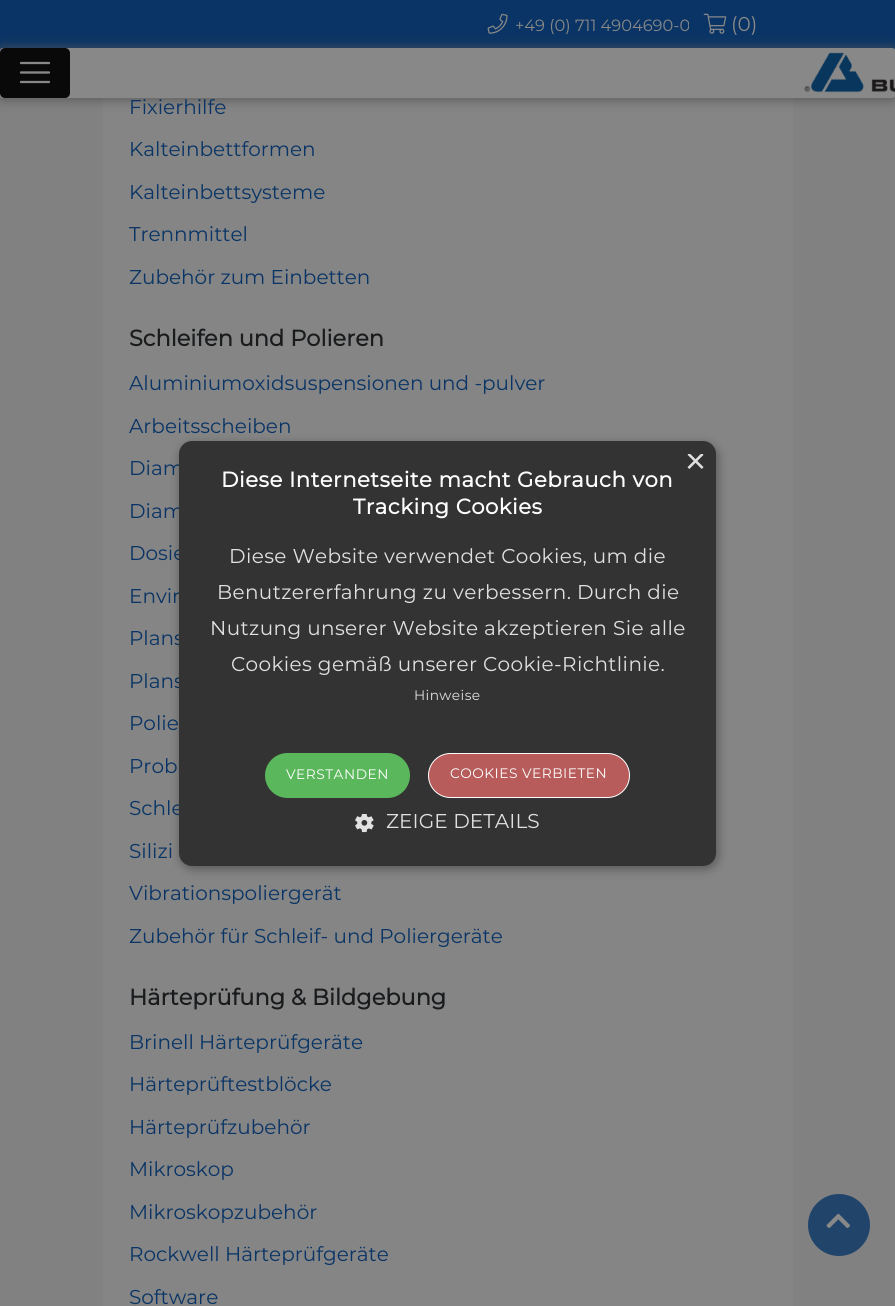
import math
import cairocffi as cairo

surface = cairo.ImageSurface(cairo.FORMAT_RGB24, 895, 1306)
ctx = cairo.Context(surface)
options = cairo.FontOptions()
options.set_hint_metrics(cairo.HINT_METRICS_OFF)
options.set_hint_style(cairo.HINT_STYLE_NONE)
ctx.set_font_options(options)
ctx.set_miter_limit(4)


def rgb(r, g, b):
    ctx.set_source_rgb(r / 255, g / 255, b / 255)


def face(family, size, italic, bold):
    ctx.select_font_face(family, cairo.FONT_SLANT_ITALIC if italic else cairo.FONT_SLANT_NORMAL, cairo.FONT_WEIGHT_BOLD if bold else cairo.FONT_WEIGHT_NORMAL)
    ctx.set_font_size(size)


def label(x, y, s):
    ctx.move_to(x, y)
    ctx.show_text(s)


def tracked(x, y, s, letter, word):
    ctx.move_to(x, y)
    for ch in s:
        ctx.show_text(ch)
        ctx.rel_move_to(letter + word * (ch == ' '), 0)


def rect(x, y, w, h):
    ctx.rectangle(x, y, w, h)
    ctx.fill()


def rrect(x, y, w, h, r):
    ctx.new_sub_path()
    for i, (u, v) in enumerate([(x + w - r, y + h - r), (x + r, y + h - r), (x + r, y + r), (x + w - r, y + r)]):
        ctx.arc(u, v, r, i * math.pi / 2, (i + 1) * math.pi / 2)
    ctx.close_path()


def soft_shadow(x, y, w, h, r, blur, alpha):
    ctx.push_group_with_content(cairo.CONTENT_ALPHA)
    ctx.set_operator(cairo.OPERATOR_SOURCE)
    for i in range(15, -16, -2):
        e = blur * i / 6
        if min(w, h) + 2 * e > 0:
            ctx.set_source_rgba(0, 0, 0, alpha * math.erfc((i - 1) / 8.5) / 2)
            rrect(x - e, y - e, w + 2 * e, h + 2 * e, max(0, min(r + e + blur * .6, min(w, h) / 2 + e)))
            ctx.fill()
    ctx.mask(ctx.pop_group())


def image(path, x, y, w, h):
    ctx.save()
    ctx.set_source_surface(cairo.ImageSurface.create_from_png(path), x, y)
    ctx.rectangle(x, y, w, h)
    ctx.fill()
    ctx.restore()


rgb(129, 129, 129)
ctx.paint()
rgb(9, 52, 101)
rect(0, 0, 895, 50)
image('image0.png', 487, 13, 21, 21)
face('Montserrat Thin', 16.25, 0, 0)
rgb(136, 136, 136)
label(515, 31, '+49 (0) 711 4904690-0')
image('image1.png', 703, 13, 24, 21)
face('Montserrat Thin', 20, 0, 0)
label(731, 31, '(0)')
rgb(133, 133, 133)
rect(103, 98, 690, 1208)
rgb(85, 85, 85)
soft_shadow(0, 49, 895, 50, 2.5, 6, 1)
rgb(136, 136, 136)
rrect(0, 48, 895, 50, 2.5)
ctx.fill()
rgb(9, 9, 9)
rrect(0, 48, 70, 50, 5)
ctx.fill()
ctx.new_path()
ctx.move_to(21, 63)
ctx.line_to(49, 63)
ctx.move_to(21, 72.5)
ctx.line_to(49, 72.5)
ctx.move_to(21, 82)
ctx.line_to(49, 82)
rgb(136, 136, 136)
ctx.set_line_width(2.3)
ctx.set_line_cap(cairo.LINE_CAP_ROUND)
ctx.stroke()
image('image2.png', 804, 52, 91, 41)
rgb(9, 52, 101)
label(129, 114, 'Fixierhilfe')
label(129, 156, 'Kalteinbettformen')
label(129, 199, 'Kalteinbettsysteme')
label(129, 241, 'Trennmittel')
label(129, 284, 'Zubehör zum Einbetten')
face('Montserrat', 22.5, 0, 1)
rgb(25, 27, 29)
label(129, 346, 'Schleifen und Polieren')
face('Montserrat Thin', 20, 0, 0)
rgb(9, 52, 101)
label(129, 390, 'Aluminiumoxidsuspensionen und -pulver')
label(129, 433, 'Arbeitsscheiben')
label(129, 475, 'Diam')
label(129, 518, 'Diam')
label(129, 560, 'Dosie')
label(129, 603, 'Envir')
label(129, 645, 'Plans')
label(129, 688, 'Plans')
label(129, 730, 'Polie')
label(129, 773, 'Prob')
label(129, 815, 'Schle')
label(129, 858, 'Silizi')
label(129, 900, 'Vibrationspoliergerät')
label(129, 943, 'Zubehör für Schleif- und Poliergeräte')
face('Montserrat', 22.5, 0, 1)
rgb(25, 27, 29)
label(129, 1005, 'Härteprüfung & Bildgebung')
face('Montserrat Thin', 20, 0, 0)
rgb(9, 52, 101)
label(129, 1049, 'Brinell Härteprüfgeräte')
label(129, 1091, 'Härteprüftestblöcke')
label(129, 1134, 'Härteprüfzubehör')
label(129, 1176, 'Mikroskop')
label(129, 1219, 'Mikroskopzubehör')
label(129, 1261, 'Rockwell Härteprüfgeräte')
label(129, 1304, 'Software')
rgb(0, 0, 0)
soft_shadow(180, 444, 538, 425, 13, 5, 0.35)
rgb(51, 51, 51)
rrect(179, 441, 537, 425, 13)
ctx.fill()
ctx.save()
ctx.rectangle(685, 454, 19, 19)
ctx.clip()
face('Liberation Sans', 36, 0, 0)
rgb(224, 224, 224)
label(685, 473, '×')
ctx.restore()
face('Montserrat', 21.25, 0, 1)
rgb(255, 255, 255)
tracked(221, 487, 'Diese Internetseite macht Gebrauch von', 0.5, 0)
tracked(353, 514, 'Tracking Cookies', 0.5, 0)
face('Montserrat Thin', 20, 0, 0)
rgb(224, 224, 224)
tracked(229, 563, 'Diese Website verwendet Cookies, um die', 0.4, 0)
tracked(217, 599, 'Benutzererfahrung zu verbessern. Durch die', 0.4, 0)
tracked(210, 635, 'Nutzung unserer Website akzeptieren Sie alle', 0.4, 0)
tracked(231, 671, 'Cookies gemäß unserer Cookie-Richtlinie.', 0.4, 0)
face('Montserrat Thin', 13.75, 0, 0)
tracked(414, 700, 'Hinweise', 0.4, 0)
rgb(91, 183, 91)
rrect(265, 753, 145, 45, 22.5)
ctx.fill()
rgb(255, 255, 255)
tracked(286, 779, 'VERSTANDEN', 0.5, 0)
rgb(183, 91, 91)
rrect(428.5, 753.5, 201, 44, 22)
ctx.fill_preserve()
rgb(255, 255, 255)
ctx.set_line_width(1)
ctx.set_line_cap(cairo.LINE_CAP_BUTT)
ctx.stroke()
tracked(450, 778, 'COOKIES VERBIETEN', 0.5, 0)
image('image3.png', 355, 814, 19, 19)
face('Montserrat Thin', 20, 0, 0)
rgb(224, 224, 224)
tracked(386, 828, 'ZEIGE DETAILS', 0.1, 0)
rgb(33, 68, 106)
ctx.new_path()
ctx.arc(839, 1225, 31, 0, 2 * math.pi)
ctx.fill()
image('image4.png', 826, 1213, 24, 15)
surface.write_to_png('render.png')
